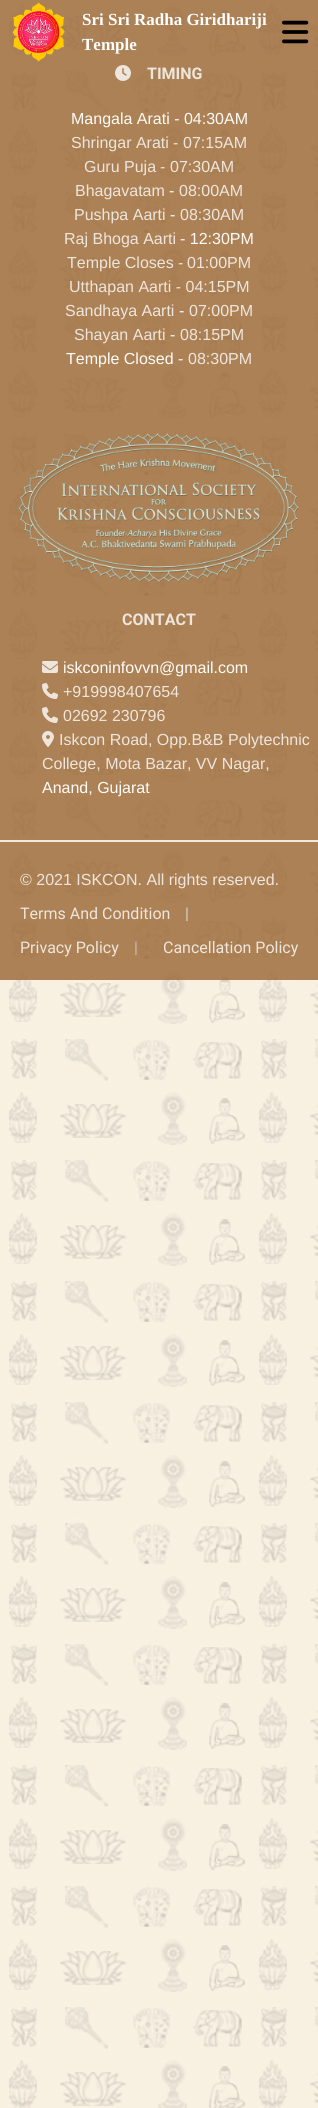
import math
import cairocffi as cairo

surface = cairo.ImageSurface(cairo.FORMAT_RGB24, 318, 2108)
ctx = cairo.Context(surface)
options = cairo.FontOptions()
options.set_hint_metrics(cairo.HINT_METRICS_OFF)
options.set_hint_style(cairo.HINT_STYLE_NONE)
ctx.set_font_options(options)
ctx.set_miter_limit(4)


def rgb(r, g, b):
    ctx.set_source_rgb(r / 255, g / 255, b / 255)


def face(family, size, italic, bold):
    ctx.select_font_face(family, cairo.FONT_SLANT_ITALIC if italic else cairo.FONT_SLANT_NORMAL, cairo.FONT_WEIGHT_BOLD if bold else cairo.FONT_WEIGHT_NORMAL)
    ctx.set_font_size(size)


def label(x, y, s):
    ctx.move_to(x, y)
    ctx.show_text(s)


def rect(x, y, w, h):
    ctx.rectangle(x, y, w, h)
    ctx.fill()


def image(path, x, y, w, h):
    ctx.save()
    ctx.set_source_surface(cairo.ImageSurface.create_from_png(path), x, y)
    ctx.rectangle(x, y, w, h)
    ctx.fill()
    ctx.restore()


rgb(255, 255, 255)
ctx.paint()
image('image0.png', 0, 0, 318, 2108)
image('image1.png', 0, 0, 318, 56)
ctx.set_source_rgba(0.6, 0.4, 0.2, 0.8)
rect(0, 56, 318, 924)
image('image2.png', 12, 2, 53, 60)
face('Liberation Serif', 17, 0, 1)
rgb(255, 255, 255)
label(82, 25, 'Sri Sri Radha Giridhariji')
label(82, 50, 'Temple')
image('image3.png', 282, 20, 27, 24)
image('image4.png', 115, 65, 16, 16)
face('Roboto', 16, 0, 1)
rgb(238, 230, 221)
label(147, 79, 'TIMING')
face('Liberation Sans', 16, 0, 0)
rgb(254, 252, 249)
label(71, 124, 'Mangala Arati - 04:30AM')
rgb(238, 230, 221)
label(71, 148, 'Shringar Arati')
label(173, 148, '-')
label(183, 148, '07:15AM')
label(84, 172, 'Guru Puja')
label(160, 172, '-')
label(170, 172, '07:30AM')
label(75, 196, 'Bhagavatam')
rgb(254, 252, 249)
label(169, 196, '-')
rgb(238, 230, 221)
label(179, 196, '08:00AM')
label(74, 220, 'Pushpa Aarti')
rgb(254, 252, 249)
label(170, 220, '-')
rgb(238, 230, 221)
label(180, 220, '08:30AM')
label(64, 244, 'Raj Bhoga Aarti')
rgb(254, 252, 249)
label(180, 244, '- 12:30PM')
rgb(238, 230, 221)
label(67, 268, 'Temple Closes')
label(178, 268, '-')
label(187, 268, '01:00PM')
label(69, 292, 'Utthapan Aarti - 04:15PM')
label(65, 316, 'Sandhaya Aarti')
rgb(254, 252, 249)
label(179, 316, '-')
rgb(238, 230, 221)
label(189, 316, '07:00PM')
label(74, 340, 'Shayan Aarti')
rgb(254, 252, 249)
label(170, 340, '-')
rgb(238, 230, 221)
label(180, 340, '08:15PM')
rgb(254, 252, 249)
label(66, 364, 'Temple Closed -')
rgb(238, 230, 221)
label(188, 364, '08:30PM')
image('image5.png', 17, 432, 282, 155)
face('Roboto', 16, 0, 1)
label(122, 625, 'CONTACT')
image('image6.png', 42, 661, 16, 12)
face('Liberation Sans', 16, 0, 0)
rgb(254, 252, 249)
label(63, 673, 'iskconinfovvn@gmail.com')
image('image7.png', 42, 683, 16, 16)
rgb(238, 230, 221)
label(63, 697, '+919998407654')
image('image7.png', 42, 707, 16, 16)
label(63, 721, '02692 230796')
image('image8.png', 42, 731, 12, 16)
label(59, 745, 'Iskcon Road, Opp.B&B Polytechnic')
label(42, 769, 'College, Mota Bazar, VV Nagar,')
rgb(254, 252, 249)
label(42, 793, 'Anand, Gujarat')
rgb(239, 234, 221)
rect(0, 840, 318, 2)
rgb(238, 230, 221)
label(20, 885, '© 2021 ISKCON. All rights reserved.')
face('Roboto', 16, 0, 0)
label(20, 919, 'Terms And Condition')
rgb(213, 211, 208)
label(185, 919, '|')
rgb(238, 230, 221)
label(20, 953, 'Privacy Policy')
rgb(198, 189, 180)
label(134, 953, '|')
rgb(238, 230, 221)
label(163, 953, 'Cancellation Policy')
surface.write_to_png('render.png')
